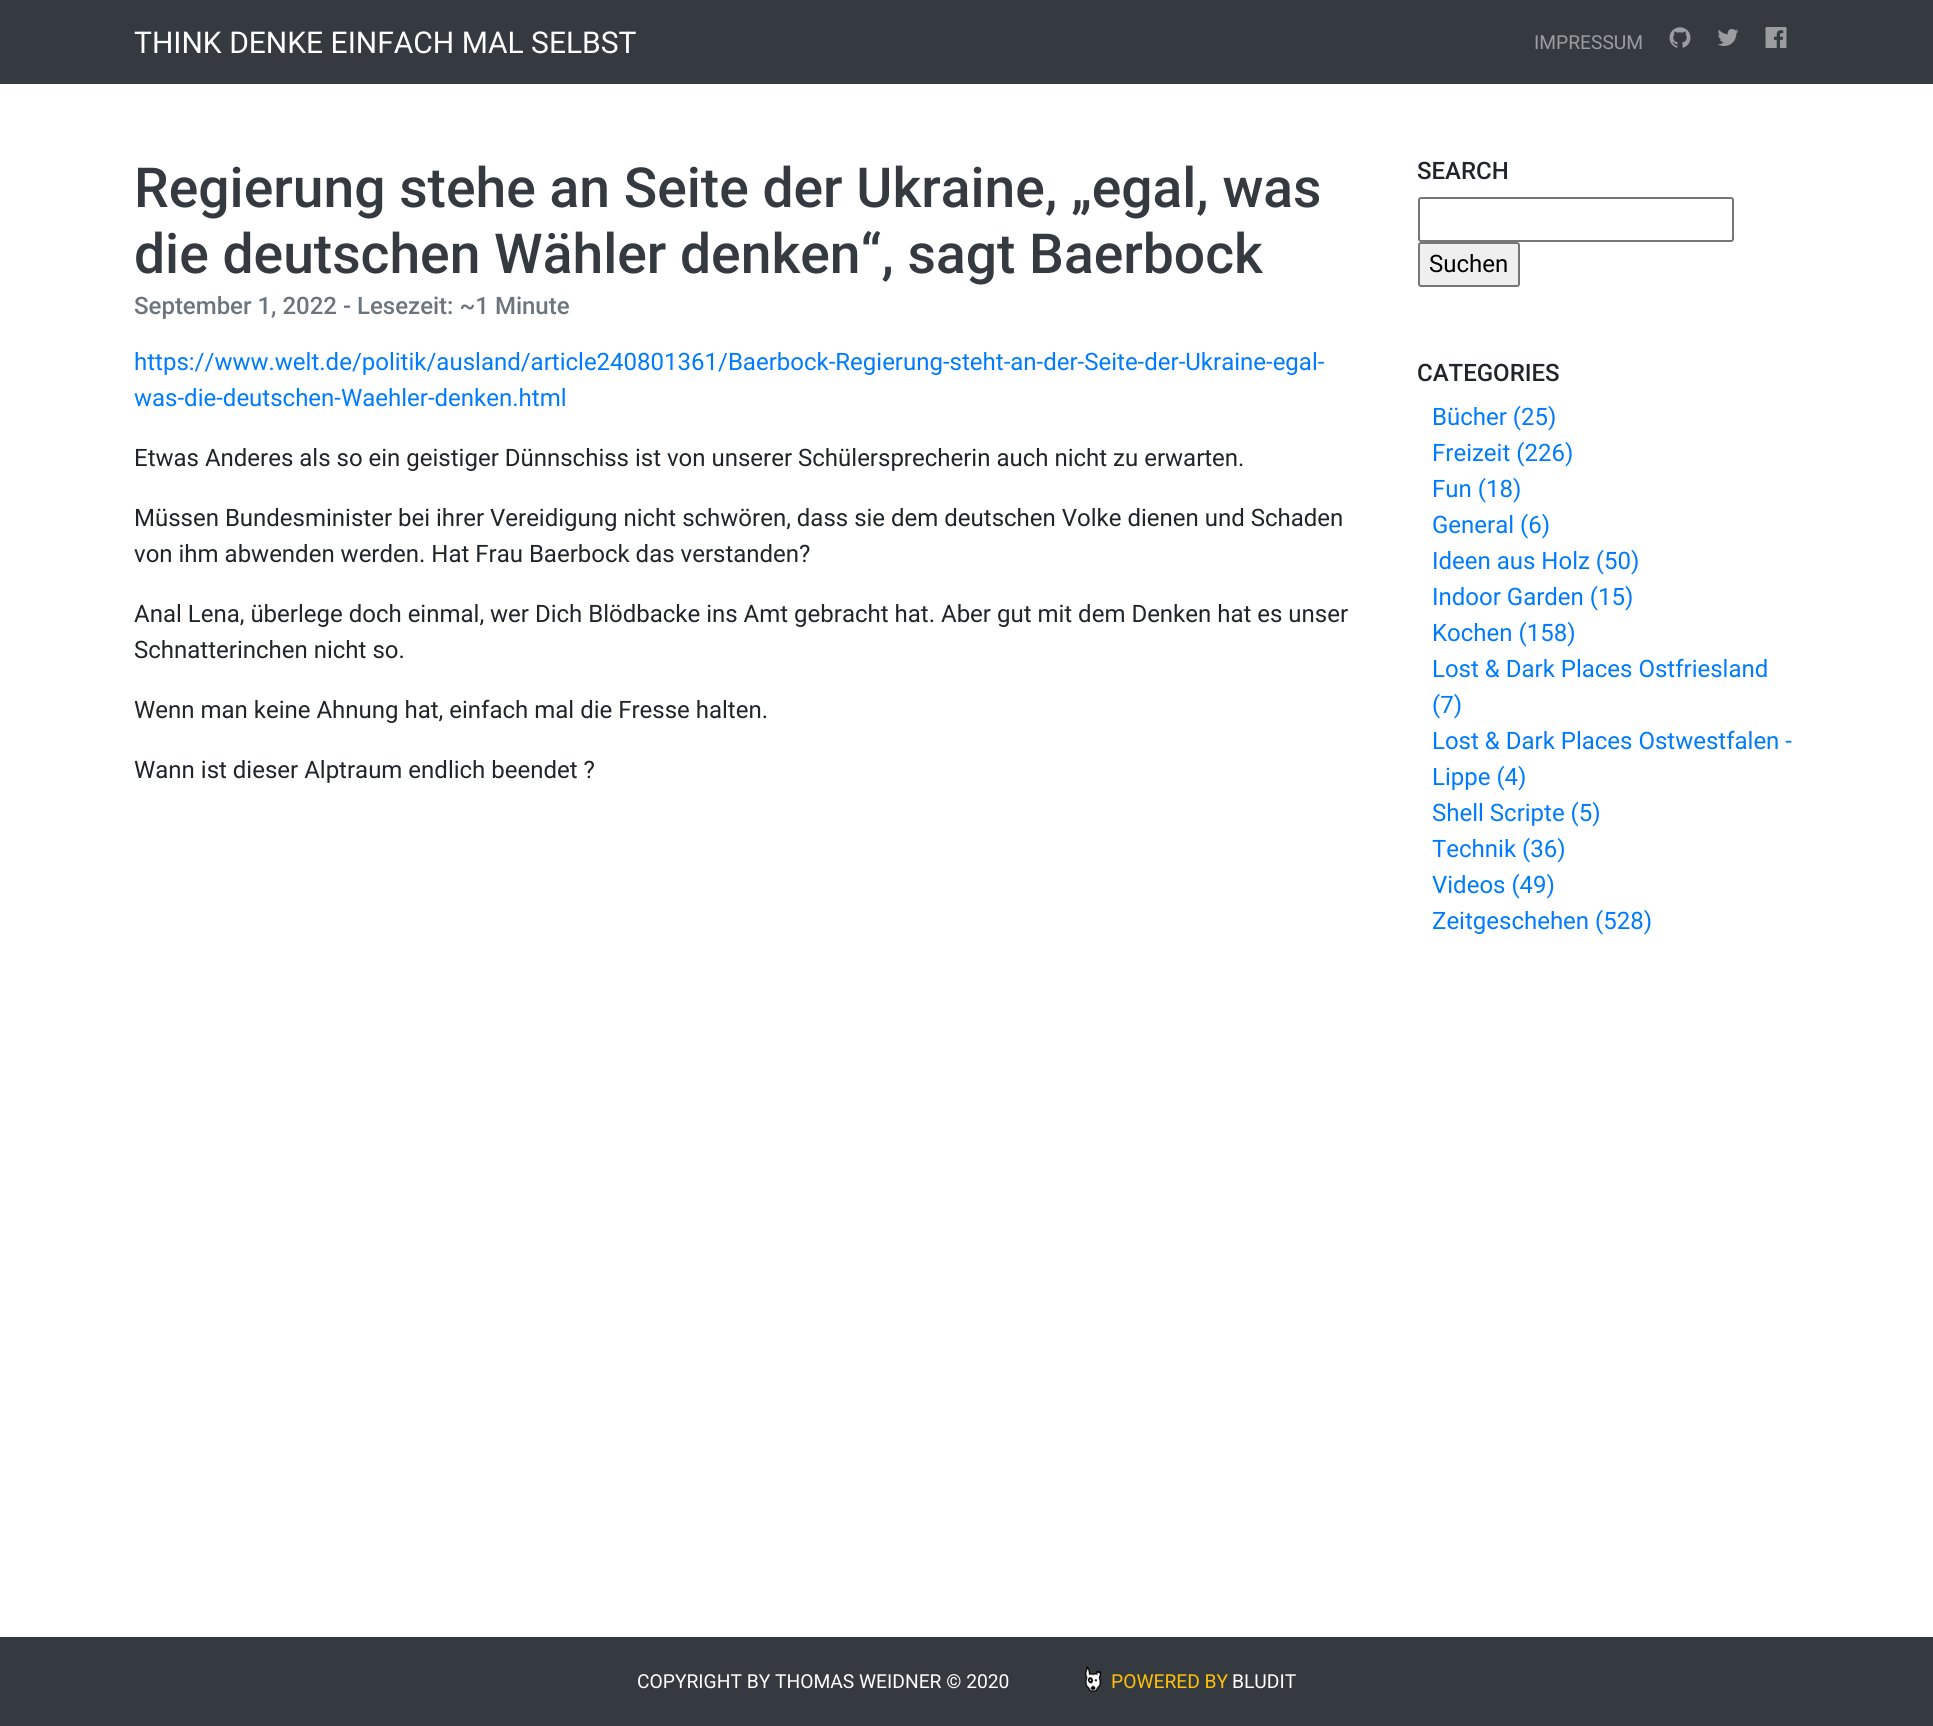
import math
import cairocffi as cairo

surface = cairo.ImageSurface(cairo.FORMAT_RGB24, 1933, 1726)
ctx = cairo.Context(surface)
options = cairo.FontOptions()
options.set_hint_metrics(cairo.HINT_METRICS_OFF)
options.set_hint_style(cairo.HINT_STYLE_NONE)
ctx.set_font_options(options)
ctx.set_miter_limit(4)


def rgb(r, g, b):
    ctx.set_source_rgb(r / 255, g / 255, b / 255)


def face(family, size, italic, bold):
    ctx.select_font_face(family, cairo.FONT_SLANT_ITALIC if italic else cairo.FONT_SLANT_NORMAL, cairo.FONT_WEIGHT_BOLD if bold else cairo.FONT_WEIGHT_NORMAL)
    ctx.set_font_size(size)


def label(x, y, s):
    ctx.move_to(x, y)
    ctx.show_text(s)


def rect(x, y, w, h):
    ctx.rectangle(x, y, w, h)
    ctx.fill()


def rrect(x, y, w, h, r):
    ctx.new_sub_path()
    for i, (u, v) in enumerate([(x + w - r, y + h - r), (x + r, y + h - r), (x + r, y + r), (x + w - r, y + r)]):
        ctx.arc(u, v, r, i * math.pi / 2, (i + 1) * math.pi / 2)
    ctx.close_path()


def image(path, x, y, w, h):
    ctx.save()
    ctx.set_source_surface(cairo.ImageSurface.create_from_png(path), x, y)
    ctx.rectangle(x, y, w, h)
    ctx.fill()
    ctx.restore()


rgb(255, 255, 255)
ctx.paint()
rgb(52, 58, 64)
rect(0, 0, 1933, 84)
face('Roboto', 30, 0, 0)
rgb(255, 255, 255)
label(134, 53, 'THINK DENKE EINFACH MAL SELBST')
face('Roboto', 19.25, 0, 0)
rgb(154, 157, 160)
label(1534, 49, 'IMPRESSUM')
image('image0.png', 1669, 27, 22, 21)
image('image1.png', 1717, 29, 22, 17)
image('image2.png', 1765, 27, 22, 21)
face('Roboto Medium', 55.2, 0, 0)
rgb(52, 58, 64)
label(134, 207, 'Regierung stehe an Seite der Ukraine, „egal, was')
label(134, 273, 'die deutschen Wähler denken“, sagt Baerbock')
face('Roboto Medium', 24, 0, 0)
rgb(108, 117, 125)
label(134, 314, 'September 1, 2022 - Lesezeit: ~1 Minute')
face('Roboto', 24, 0, 0)
rgb(0, 123, 255)
label(134, 370, 'https://www.welt.de/politik/ausland/article240801361/Baerbock-Regierung-steht-an-der-Seite-der-Ukraine-egal-')
label(134, 406, 'was-die-deutschen-Waehler-denken.html')
rgb(33, 37, 41)
label(134, 466, 'Etwas Anderes als so ein geistiger Dünnschiss ist von unserer Schülersprecherin auch nicht zu erwarten.')
label(134, 526, 'Müssen Bundesminister bei ihrer Vereidigung nicht schwören, dass sie dem deutschen Volke dienen und Schaden')
label(134, 562, 'von ihm abwenden werden. Hat Frau Baerbock das verstanden?')
label(134, 622, 'Anal Lena, überlege doch einmal, wer Dich Blödbacke ins Amt gebracht hat. Aber gut mit dem Denken hat es unser')
label(134, 658, 'Schnatterinchen nicht so.')
label(134, 718, 'Wenn man keine Ahnung hat, einfach mal die Fresse halten.')
label(134, 778, 'Wann ist dieser Alptraum endlich beendet ?')
face('Roboto Medium', 24, 0, 0)
label(1417, 179, 'SEARCH')
rrect(1419, 198, 314, 43, 2)
rgb(118, 118, 118)
ctx.stroke()
rgb(239, 239, 239)
rrect(1419, 243, 100, 43, 2)
ctx.fill_preserve()
rgb(118, 118, 118)
ctx.stroke()
face('Roboto', 24, 0, 0)
rgb(0, 0, 0)
label(1429, 272, 'Suchen')
face('Roboto Medium', 24, 0, 0)
rgb(33, 37, 41)
label(1417, 381, 'CATEGORIES')
face('Roboto', 24, 0, 0)
rgb(0, 123, 255)
label(1432, 425, 'Bücher (25)')
label(1432, 461, 'Freizeit (226)')
label(1432, 497, 'Fun (18)')
label(1432, 533, 'General (6)')
label(1432, 569, 'Ideen aus Holz (50)')
label(1432, 605, 'Indoor Garden (15)')
label(1432, 641, 'Kochen (158)')
label(1432, 677, 'Lost & Dark Places Ostfriesland')
label(1432, 713, '(7)')
label(1432, 749, 'Lost & Dark Places Ostwestfalen -')
label(1432, 785, 'Lippe (4)')
label(1432, 821, 'Shell Scripte (5)')
label(1432, 857, 'Technik (36)')
label(1432, 893, 'Videos (49)')
label(1432, 929, 'Zeitgeschehen (528)')
rgb(52, 58, 64)
rect(0, 1637, 1933, 89)
face('Roboto', 19.25, 0, 0)
rgb(255, 255, 255)
label(637, 1688, 'COPYRIGHT BY THOMAS WEIDNER © 2020')
image('image3.png', 1084, 1666, 18, 26)
rgb(255, 193, 7)
label(1111, 1688, 'POWERED BY')
rgb(255, 255, 255)
label(1232, 1688, 'BLUDIT')
surface.write_to_png('render.png')
